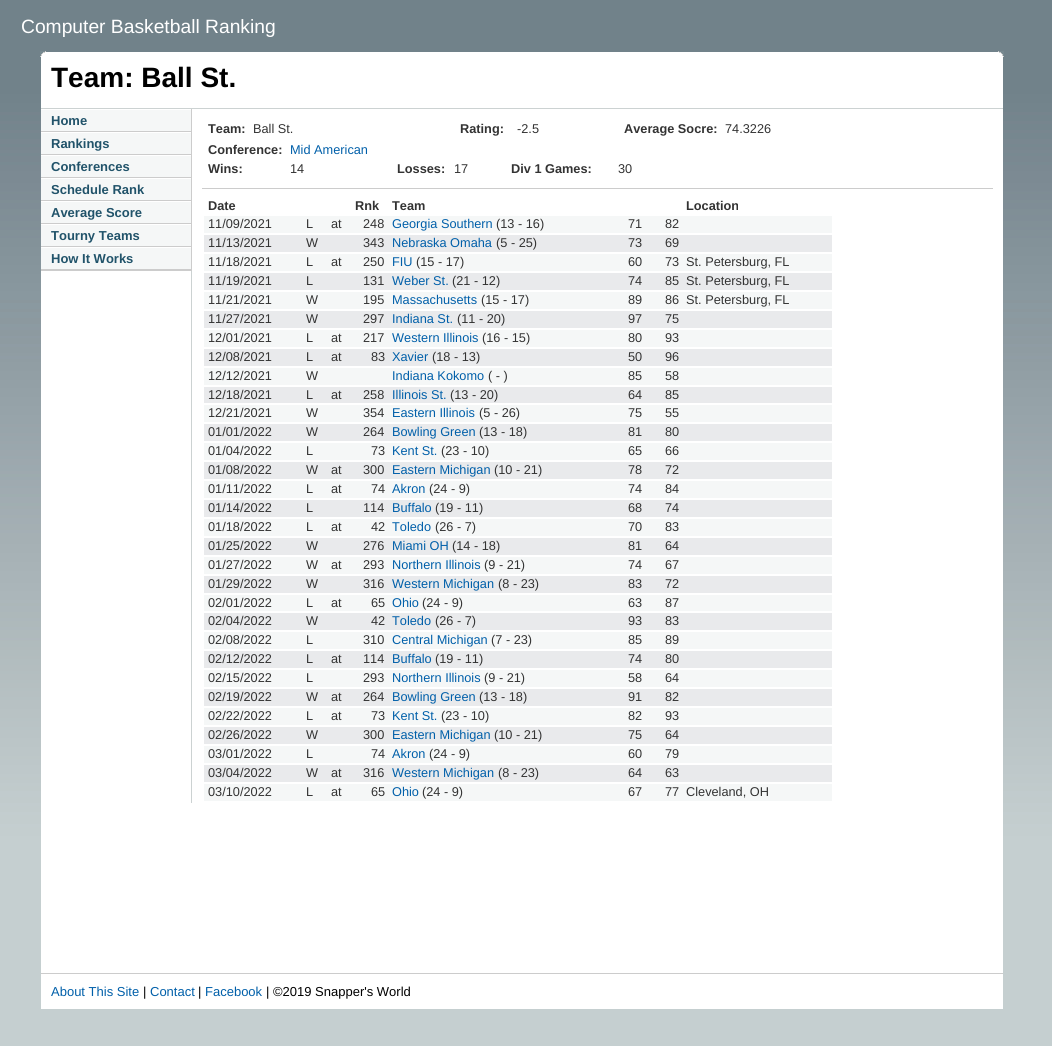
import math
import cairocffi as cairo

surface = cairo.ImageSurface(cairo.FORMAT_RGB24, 1052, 1046)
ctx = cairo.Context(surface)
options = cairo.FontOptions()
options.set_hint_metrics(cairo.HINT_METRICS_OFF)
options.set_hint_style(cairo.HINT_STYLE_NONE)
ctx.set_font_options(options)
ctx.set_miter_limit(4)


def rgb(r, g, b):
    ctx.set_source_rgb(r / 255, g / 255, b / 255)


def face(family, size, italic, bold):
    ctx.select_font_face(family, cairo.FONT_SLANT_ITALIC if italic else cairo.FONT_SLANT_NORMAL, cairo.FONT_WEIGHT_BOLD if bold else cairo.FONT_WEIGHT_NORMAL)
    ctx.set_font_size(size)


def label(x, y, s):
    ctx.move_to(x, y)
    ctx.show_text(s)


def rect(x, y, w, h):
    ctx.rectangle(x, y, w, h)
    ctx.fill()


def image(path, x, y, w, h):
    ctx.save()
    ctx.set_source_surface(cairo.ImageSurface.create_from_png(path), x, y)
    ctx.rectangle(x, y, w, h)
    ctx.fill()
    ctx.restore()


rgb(255, 255, 255)
ctx.paint()
image('image0.png', 0, 0, 1052, 1046)
face('Liberation Sans', 19.25, 0, 0)
rgb(255, 255, 255)
label(21, 33, 'Computer Basketball Ranking')
rect(41, 52, 962, 957)
image('image1.png', 40, 51, 6, 6)
image('image2.png', 998, 51, 6, 6)
rgb(204, 210, 210)
rect(41, 108, 962, 1)
face('Liberation Sans', 28, 0, 1)
rgb(0, 0, 0)
label(51, 87, 'Team: Ball St.')
rgb(245, 247, 247)
rect(41, 110, 150, 159)
rgb(204, 204, 204)
rect(191, 109, 1, 162)
rect(41, 270, 151, 1)
rect(41, 131, 150, 1)
face('Liberation Sans', 13, 0, 1)
rgb(33, 83, 106)
label(51, 125, 'Home')
rgb(255, 255, 255)
rect(41, 132, 150, 1)
rgb(204, 204, 204)
rect(41, 154, 150, 1)
rgb(33, 83, 106)
label(51, 148, 'Rankings')
rgb(255, 255, 255)
rect(41, 155, 150, 1)
rgb(204, 204, 204)
rect(41, 177, 150, 1)
rgb(33, 83, 106)
label(51, 171, 'Conferences')
rgb(255, 255, 255)
rect(41, 178, 150, 1)
rgb(204, 204, 204)
rect(41, 200, 150, 1)
rgb(33, 83, 106)
label(51, 194, 'Schedule Rank')
rgb(255, 255, 255)
rect(41, 201, 150, 1)
rgb(204, 204, 204)
rect(41, 223, 150, 1)
rgb(33, 83, 106)
label(51, 217, 'Average Score')
rgb(255, 255, 255)
rect(41, 224, 150, 1)
rgb(204, 204, 204)
rect(41, 246, 150, 1)
rgb(33, 83, 106)
label(51, 240, 'Tourny Teams')
rgb(255, 255, 255)
rect(41, 247, 150, 1)
rgb(204, 204, 204)
rect(41, 269, 150, 1)
rgb(33, 83, 106)
label(51, 263, 'How It Works')
rgb(204, 210, 210)
rect(191, 271, 1, 532)
face('Liberation Sans', 12.75, 0, 1)
rgb(51, 51, 51)
label(208, 133, 'Team:')
face('Liberation Sans', 12.75, 0, 0)
label(253, 133, 'Ball St.')
face('Liberation Sans', 12.75, 0, 1)
label(460, 133, 'Rating:')
face('Liberation Sans', 12.75, 0, 0)
label(517, 133, '-2.5')
face('Liberation Sans', 12.75, 0, 1)
label(624, 133, 'Average Socre:')
face('Liberation Sans', 12.75, 0, 0)
label(725, 133, '74.3226')
face('Liberation Sans', 12.75, 0, 1)
label(208, 154, 'Conference:')
face('Liberation Sans', 12.75, 0, 0)
rgb(0, 95, 169)
label(290, 154, 'Mid American')
face('Liberation Sans', 12.75, 0, 1)
rgb(51, 51, 51)
label(208, 173, 'Wins:')
face('Liberation Sans', 12.75, 0, 0)
label(290, 173, '14')
face('Liberation Sans', 12.75, 0, 1)
label(397, 173, 'Losses:')
face('Liberation Sans', 12.75, 0, 0)
label(454, 173, '17')
face('Liberation Sans', 12.75, 0, 1)
label(511, 173, 'Div 1 Games:')
face('Liberation Sans', 12.75, 0, 0)
label(618, 173, '30')
rgb(204, 204, 204)
rect(202, 188, 791, 1)
face('Liberation Sans', 12.75, 0, 1)
rgb(51, 51, 51)
label(208, 210, 'Date')
label(355, 210, 'Rnk')
label(392, 210, 'Team')
label(686, 210, 'Location')
rgb(245, 247, 247)
rect(204, 216, 628, 17)
face('Liberation Sans', 12.75, 0, 0)
rgb(51, 51, 51)
label(208, 228, '11/09/2021')
label(306, 228, 'L')
label(331, 228, 'at')
label(363, 228, '248')
rgb(0, 95, 169)
label(392, 228, 'Georgia Southern')
rgb(51, 51, 51)
label(496, 228, '(13 - 16)')
label(628, 228, '71')
label(665, 228, '82')
rgb(233, 234, 236)
rect(204, 235, 628, 17)
rgb(51, 51, 51)
label(208, 247, '11/13/2021')
label(306, 247, 'W')
label(363, 247, '343')
rgb(0, 95, 169)
label(392, 247, 'Nebraska Omaha')
rgb(51, 51, 51)
label(496, 247, '(5 - 25)')
label(628, 247, '73')
label(665, 247, '69')
rgb(245, 247, 247)
rect(204, 254, 628, 17)
rgb(51, 51, 51)
label(208, 266, '11/18/2021')
label(306, 266, 'L')
label(331, 266, 'at')
label(363, 266, '250')
rgb(0, 95, 169)
label(392, 266, 'FIU')
rgb(51, 51, 51)
label(416, 266, '(15 - 17)')
label(628, 266, '60')
label(665, 266, '73')
label(686, 266, 'St. Petersburg, FL')
rgb(233, 234, 236)
rect(204, 273, 628, 17)
rgb(51, 51, 51)
label(208, 285, '11/19/2021')
label(306, 285, 'L')
label(363, 285, '131')
rgb(0, 95, 169)
label(392, 285, 'Weber St.')
rgb(51, 51, 51)
label(452, 285, '(21 - 12)')
label(628, 285, '74')
label(665, 285, '85')
label(686, 285, 'St. Petersburg, FL')
rgb(245, 247, 247)
rect(204, 292, 628, 17)
rgb(51, 51, 51)
label(208, 304, '11/21/2021')
label(306, 304, 'W')
label(363, 304, '195')
rgb(0, 95, 169)
label(392, 304, 'Massachusetts')
rgb(51, 51, 51)
label(481, 304, '(15 - 17)')
label(628, 304, '89')
label(665, 304, '86')
label(686, 304, 'St. Petersburg, FL')
rgb(233, 234, 236)
rect(204, 311, 628, 17)
rgb(51, 51, 51)
label(208, 323, '11/27/2021')
label(306, 323, 'W')
label(363, 323, '297')
rgb(0, 95, 169)
label(392, 323, 'Indiana St.')
rgb(51, 51, 51)
label(457, 323, '(11 - 20)')
label(628, 323, '97')
label(665, 323, '75')
rgb(245, 247, 247)
rect(204, 330, 628, 17)
rgb(51, 51, 51)
label(208, 342, '12/01/2021')
label(306, 342, 'L')
label(331, 342, 'at')
label(363, 342, '217')
rgb(0, 95, 169)
label(392, 342, 'Western Illinois')
rgb(51, 51, 51)
label(482, 342, '(16 - 15)')
label(628, 342, '80')
label(665, 342, '93')
rgb(233, 234, 236)
rect(204, 349, 628, 17)
rgb(51, 51, 51)
label(208, 361, '12/08/2021')
label(306, 361, 'L')
label(331, 361, 'at')
label(371, 361, '83')
rgb(0, 95, 169)
label(392, 361, 'Xavier')
rgb(51, 51, 51)
label(432, 361, '(18 - 13)')
label(628, 361, '50')
label(665, 361, '96')
rgb(245, 247, 247)
rect(204, 368, 628, 17)
rgb(51, 51, 51)
label(208, 380, '12/12/2021')
label(306, 380, 'W')
rgb(0, 95, 169)
label(392, 380, 'Indiana Kokomo')
rgb(51, 51, 51)
label(488, 380, '( - )')
label(628, 380, '85')
label(665, 380, '58')
rgb(233, 234, 236)
rect(204, 387, 628, 16)
rgb(51, 51, 51)
label(208, 399, '12/18/2021')
label(306, 399, 'L')
label(331, 399, 'at')
label(363, 399, '258')
rgb(0, 95, 169)
label(392, 399, 'Illinois St.')
rgb(51, 51, 51)
label(450, 399, '(13 - 20)')
label(628, 399, '64')
label(665, 399, '85')
rgb(245, 247, 247)
rect(204, 405, 628, 17)
rgb(51, 51, 51)
label(208, 417, '12/21/2021')
label(306, 417, 'W')
label(363, 417, '354')
rgb(0, 95, 169)
label(392, 417, 'Eastern Illinois')
rgb(51, 51, 51)
label(479, 417, '(5 - 26)')
label(628, 417, '75')
label(665, 417, '55')
rgb(233, 234, 236)
rect(204, 424, 628, 17)
rgb(51, 51, 51)
label(208, 436, '01/01/2022')
label(306, 436, 'W')
label(363, 436, '264')
rgb(0, 95, 169)
label(392, 436, 'Bowling Green')
rgb(51, 51, 51)
label(479, 436, '(13 - 18)')
label(628, 436, '81')
label(665, 436, '80')
rgb(245, 247, 247)
rect(204, 443, 628, 17)
rgb(51, 51, 51)
label(208, 455, '01/04/2022')
label(306, 455, 'L')
label(371, 455, '73')
rgb(0, 95, 169)
label(392, 455, 'Kent St.')
rgb(51, 51, 51)
label(441, 455, '(23 - 10)')
label(628, 455, '65')
label(665, 455, '66')
rgb(233, 234, 236)
rect(204, 462, 628, 17)
rgb(51, 51, 51)
label(208, 474, '01/08/2022')
label(306, 474, 'W')
label(331, 474, 'at')
label(363, 474, '300')
rgb(0, 95, 169)
label(392, 474, 'Eastern Michigan')
rgb(51, 51, 51)
label(494, 474, '(10 - 21)')
label(628, 474, '78')
label(665, 474, '72')
rgb(245, 247, 247)
rect(204, 481, 628, 17)
rgb(51, 51, 51)
label(208, 493, '01/11/2022')
label(306, 493, 'L')
label(331, 493, 'at')
label(371, 493, '74')
rgb(0, 95, 169)
label(392, 493, 'Akron')
rgb(51, 51, 51)
label(429, 493, '(24 - 9)')
label(628, 493, '74')
label(665, 493, '84')
rgb(233, 234, 236)
rect(204, 500, 628, 17)
rgb(51, 51, 51)
label(208, 512, '01/14/2022')
label(306, 512, 'L')
label(363, 512, '114')
rgb(0, 95, 169)
label(392, 512, 'Buffalo')
rgb(51, 51, 51)
label(435, 512, '(19 - 11)')
label(628, 512, '68')
label(665, 512, '74')
rgb(245, 247, 247)
rect(204, 519, 628, 17)
rgb(51, 51, 51)
label(208, 531, '01/18/2022')
label(306, 531, 'L')
label(331, 531, 'at')
label(371, 531, '42')
rgb(0, 95, 169)
label(392, 531, 'Toledo')
rgb(51, 51, 51)
label(435, 531, '(26 - 7)')
label(628, 531, '70')
label(665, 531, '83')
rgb(233, 234, 236)
rect(204, 538, 628, 17)
rgb(51, 51, 51)
label(208, 550, '01/25/2022')
label(306, 550, 'W')
label(363, 550, '276')
rgb(0, 95, 169)
label(392, 550, 'Miami OH')
rgb(51, 51, 51)
label(452, 550, '(14 - 18)')
label(628, 550, '81')
label(665, 550, '64')
rgb(245, 247, 247)
rect(204, 557, 628, 17)
rgb(51, 51, 51)
label(208, 569, '01/27/2022')
label(306, 569, 'W')
label(331, 569, 'at')
label(363, 569, '293')
rgb(0, 95, 169)
label(392, 569, 'Northern Illinois')
rgb(51, 51, 51)
label(484, 569, '(9 - 21)')
label(628, 569, '74')
label(665, 569, '67')
rgb(233, 234, 236)
rect(204, 576, 628, 17)
rgb(51, 51, 51)
label(208, 588, '01/29/2022')
label(306, 588, 'W')
label(363, 588, '316')
rgb(0, 95, 169)
label(392, 588, 'Western Michigan')
rgb(51, 51, 51)
label(498, 588, '(8 - 23)')
label(628, 588, '83')
label(665, 588, '72')
rgb(245, 247, 247)
rect(204, 595, 628, 16)
rgb(51, 51, 51)
label(208, 607, '02/01/2022')
label(306, 607, 'L')
label(331, 607, 'at')
label(371, 607, '65')
rgb(0, 95, 169)
label(392, 607, 'Ohio')
rgb(51, 51, 51)
label(422, 607, '(24 - 9)')
label(628, 607, '63')
label(665, 607, '87')
rgb(233, 234, 236)
rect(204, 613, 628, 17)
rgb(51, 51, 51)
label(208, 625, '02/04/2022')
label(306, 625, 'W')
label(371, 625, '42')
rgb(0, 95, 169)
label(392, 625, 'Toledo')
rgb(51, 51, 51)
label(435, 625, '(26 - 7)')
label(628, 625, '93')
label(665, 625, '83')
rgb(245, 247, 247)
rect(204, 632, 628, 17)
rgb(51, 51, 51)
label(208, 644, '02/08/2022')
label(306, 644, 'L')
label(363, 644, '310')
rgb(0, 95, 169)
label(392, 644, 'Central Michigan')
rgb(51, 51, 51)
label(491, 644, '(7 - 23)')
label(628, 644, '85')
label(665, 644, '89')
rgb(233, 234, 236)
rect(204, 651, 628, 17)
rgb(51, 51, 51)
label(208, 663, '02/12/2022')
label(306, 663, 'L')
label(331, 663, 'at')
label(363, 663, '114')
rgb(0, 95, 169)
label(392, 663, 'Buffalo')
rgb(51, 51, 51)
label(435, 663, '(19 - 11)')
label(628, 663, '74')
label(665, 663, '80')
rgb(245, 247, 247)
rect(204, 670, 628, 17)
rgb(51, 51, 51)
label(208, 682, '02/15/2022')
label(306, 682, 'L')
label(363, 682, '293')
rgb(0, 95, 169)
label(392, 682, 'Northern Illinois')
rgb(51, 51, 51)
label(484, 682, '(9 - 21)')
label(628, 682, '58')
label(665, 682, '64')
rgb(233, 234, 236)
rect(204, 689, 628, 17)
rgb(51, 51, 51)
label(208, 701, '02/19/2022')
label(306, 701, 'W')
label(331, 701, 'at')
label(363, 701, '264')
rgb(0, 95, 169)
label(392, 701, 'Bowling Green')
rgb(51, 51, 51)
label(479, 701, '(13 - 18)')
label(628, 701, '91')
label(665, 701, '82')
rgb(245, 247, 247)
rect(204, 708, 628, 17)
rgb(51, 51, 51)
label(208, 720, '02/22/2022')
label(306, 720, 'L')
label(331, 720, 'at')
label(371, 720, '73')
rgb(0, 95, 169)
label(392, 720, 'Kent St.')
rgb(51, 51, 51)
label(441, 720, '(23 - 10)')
label(628, 720, '82')
label(665, 720, '93')
rgb(233, 234, 236)
rect(204, 727, 628, 17)
rgb(51, 51, 51)
label(208, 739, '02/26/2022')
label(306, 739, 'W')
label(363, 739, '300')
rgb(0, 95, 169)
label(392, 739, 'Eastern Michigan')
rgb(51, 51, 51)
label(494, 739, '(10 - 21)')
label(628, 739, '75')
label(665, 739, '64')
rgb(245, 247, 247)
rect(204, 746, 628, 17)
rgb(51, 51, 51)
label(208, 758, '03/01/2022')
label(306, 758, 'L')
label(371, 758, '74')
rgb(0, 95, 169)
label(392, 758, 'Akron')
rgb(51, 51, 51)
label(429, 758, '(24 - 9)')
label(628, 758, '60')
label(665, 758, '79')
rgb(233, 234, 236)
rect(204, 765, 628, 17)
rgb(51, 51, 51)
label(208, 777, '03/04/2022')
label(306, 777, 'W')
label(331, 777, 'at')
label(363, 777, '316')
rgb(0, 95, 169)
label(392, 777, 'Western Michigan')
rgb(51, 51, 51)
label(498, 777, '(8 - 23)')
label(628, 777, '64')
label(665, 777, '63')
rgb(245, 247, 247)
rect(204, 784, 628, 17)
rgb(51, 51, 51)
label(208, 796, '03/10/2022')
label(306, 796, 'L')
label(331, 796, 'at')
label(371, 796, '65')
rgb(0, 95, 169)
label(392, 796, 'Ohio')
rgb(51, 51, 51)
label(422, 796, '(24 - 9)')
label(628, 796, '67')
label(665, 796, '77')
label(686, 796, 'Cleveland, OH')
rgb(204, 204, 204)
rect(41, 973, 962, 1)
face('Liberation Sans', 13, 0, 0)
rgb(0, 95, 169)
label(51, 996, 'About This Site')
rgb(0, 0, 0)
label(143, 996, '|')
rgb(0, 95, 169)
label(150, 996, 'Contact')
rgb(0, 0, 0)
label(198, 996, '|')
rgb(0, 95, 169)
label(205, 996, 'Facebook')
rgb(0, 0, 0)
label(266, 996, '| ©2019 Snapper\'s World')
surface.write_to_png('render.png')
